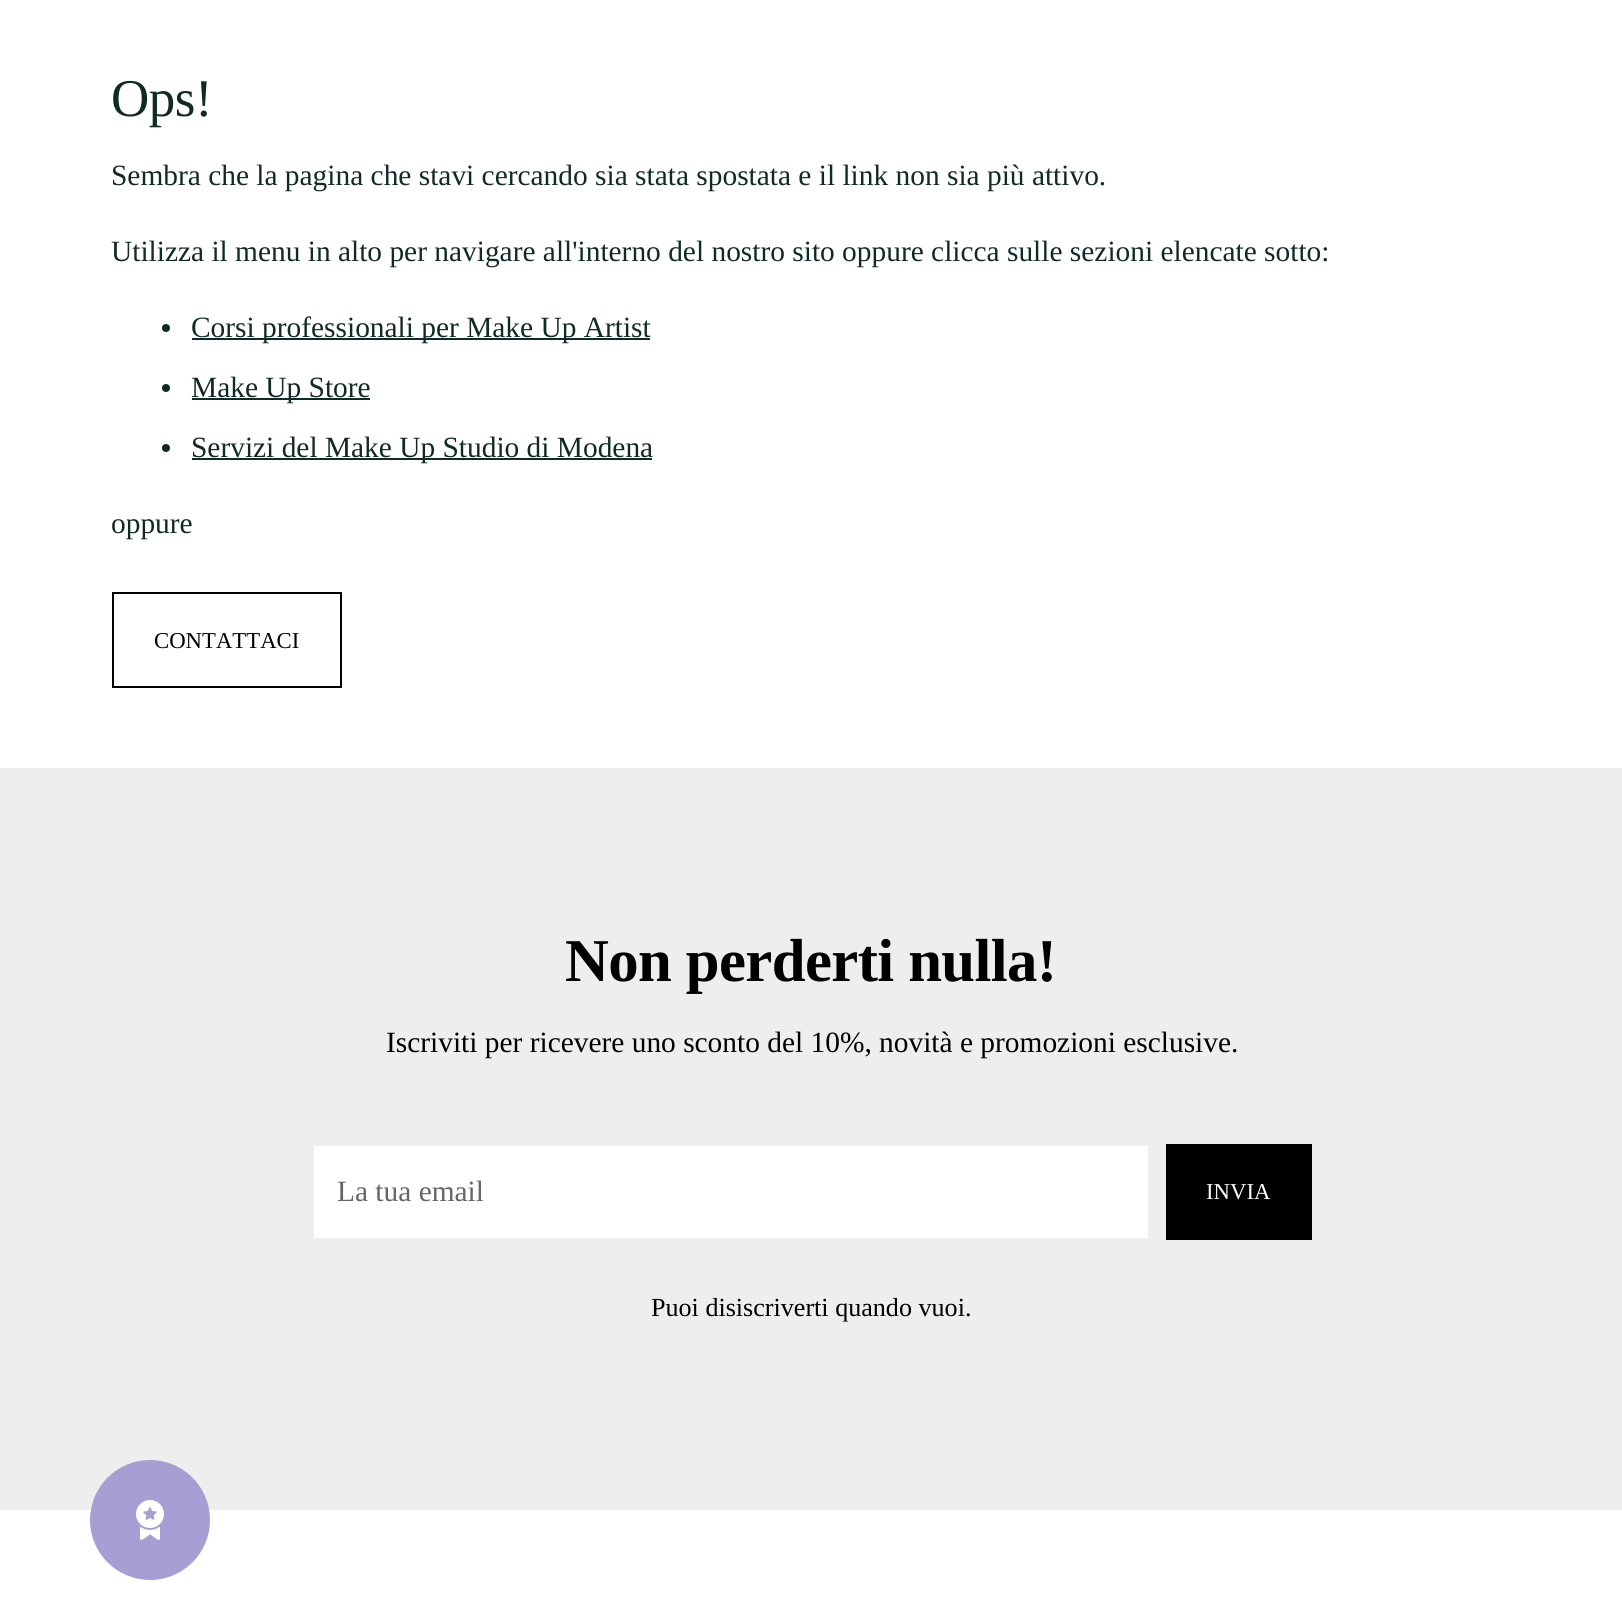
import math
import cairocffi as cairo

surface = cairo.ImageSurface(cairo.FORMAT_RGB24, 1622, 1599)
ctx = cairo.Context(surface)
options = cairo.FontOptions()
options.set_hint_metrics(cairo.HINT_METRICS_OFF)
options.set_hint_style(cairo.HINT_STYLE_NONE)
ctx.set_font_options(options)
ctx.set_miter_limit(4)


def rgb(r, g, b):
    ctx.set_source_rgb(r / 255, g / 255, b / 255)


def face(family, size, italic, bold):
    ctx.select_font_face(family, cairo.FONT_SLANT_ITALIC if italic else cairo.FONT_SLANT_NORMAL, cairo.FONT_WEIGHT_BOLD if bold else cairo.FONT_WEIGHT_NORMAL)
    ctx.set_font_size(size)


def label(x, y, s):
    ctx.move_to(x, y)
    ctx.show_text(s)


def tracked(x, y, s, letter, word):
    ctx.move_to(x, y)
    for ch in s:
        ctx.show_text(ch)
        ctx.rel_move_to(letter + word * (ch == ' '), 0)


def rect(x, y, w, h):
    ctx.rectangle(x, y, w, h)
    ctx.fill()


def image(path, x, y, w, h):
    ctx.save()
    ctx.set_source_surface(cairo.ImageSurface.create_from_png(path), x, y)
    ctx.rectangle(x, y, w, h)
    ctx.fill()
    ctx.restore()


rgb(255, 255, 255)
ctx.paint()
face('Liberation Serif', 53, 0, 0)
rgb(16, 43, 38)
tracked(111, 116, 'Ops!', -0.5, 0)
face('Liberation Serif', 29.4, 0, 0)
label(111, 185, 'Sembra che la pagina che stavi cercando sia stata spostata e il link non sia più attivo.')
label(111, 261, 'Utilizza il menu in alto per navigare all\'interno del nostro sito oppure clicca sulle sezioni elencate sotto:')
ctx.new_path()
ctx.arc(166, 328, 4, 0, 2 * math.pi)
ctx.fill()
rect(192, 338, 458, 2)
label(191, 337, 'Corsi professionali per Make Up Artist')
ctx.new_path()
ctx.arc(166, 388, 4, 0, 2 * math.pi)
ctx.fill()
rect(192, 398, 178, 2)
label(191, 397, 'Make Up Store')
ctx.new_path()
ctx.arc(166, 448, 4, 0, 2 * math.pi)
ctx.fill()
rect(192, 458, 460, 2)
label(191, 457, 'Servizi del Make Up Studio di Modena')
label(111, 533, 'oppure')
ctx.rectangle(113, 593, 228, 94)
rgb(0, 0, 0)
ctx.stroke()
face('Liberation Serif', 22.75, 0, 0)
label(154, 648, 'CONTATTACI')
rgb(239, 238, 238)
rect(0, 768, 1622, 742)
face('Liberation Serif', 60.75, 0, 1)
rgb(0, 0, 0)
tracked(565, 981, 'Non perderti nulla!', -0.6, 0)
face('Liberation Serif', 29.4, 0, 0)
label(386, 1052, 'Iscriviti per ricevere uno sconto del 10%, novità e promozioni esclusive.')
rgb(255, 255, 255)
rect(314, 1146, 834, 92)
rgb(102, 102, 102)
label(337, 1201, 'La tua email')
ctx.save()
ctx.rectangle(1166, 1144, 146, 96)
ctx.clip()
rgb(0, 0, 0)
ctx.new_path()
ctx.move_to(1108, 1144)
ctx.line_to(1312, 1144)
ctx.line_to(1368, 1240)
ctx.line_to(1164, 1240)
ctx.close_path()
ctx.fill()
ctx.restore()
face('Liberation Serif', 22.75, 0, 0)
rgb(255, 255, 255)
label(1206, 1199, 'INVIA')
face('Liberation Serif', 26.1, 0, 0)
rgb(0, 0, 0)
label(651, 1316, 'Puoi disiscriverti quando vuoi.')
rgb(167, 159, 211)
ctx.new_path()
ctx.arc(150, 1520, 60, 0, 2 * math.pi)
ctx.fill()
image('image0.png', 136, 1500, 28, 40)
surface.write_to_png('render.png')
